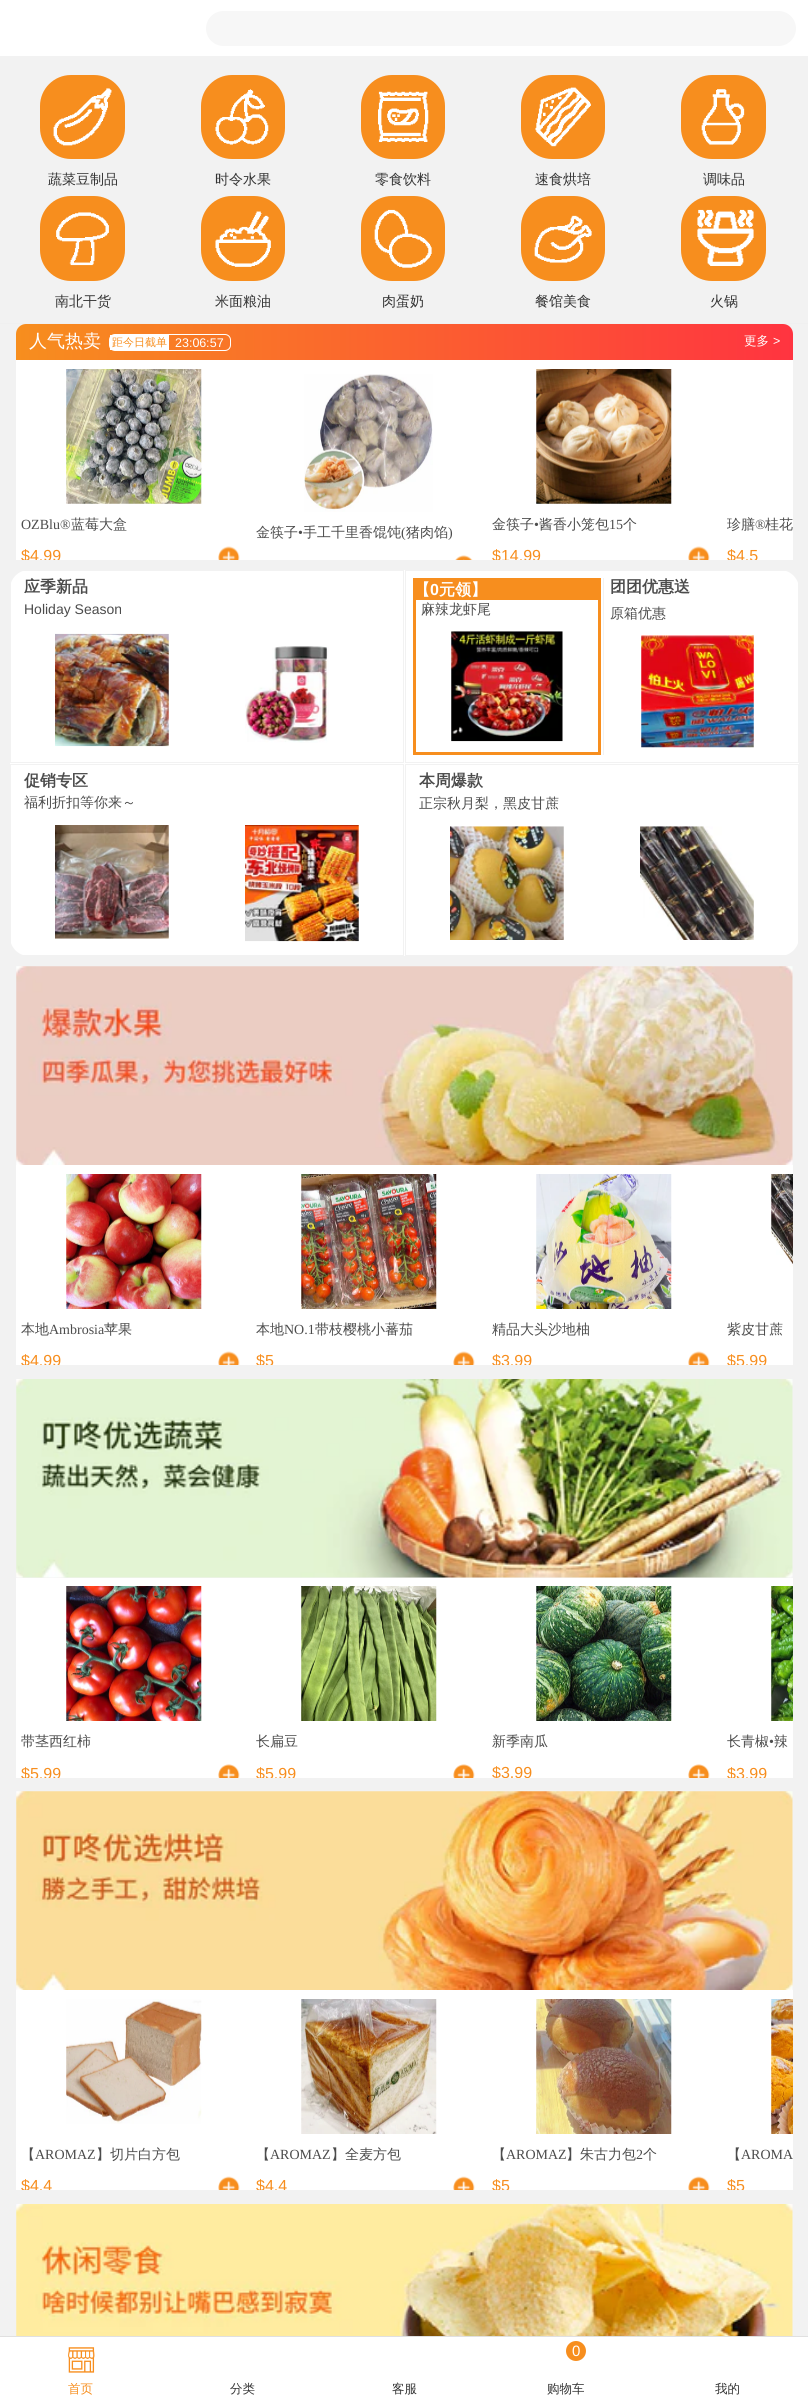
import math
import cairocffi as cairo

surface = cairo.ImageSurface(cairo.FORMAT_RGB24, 808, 2398)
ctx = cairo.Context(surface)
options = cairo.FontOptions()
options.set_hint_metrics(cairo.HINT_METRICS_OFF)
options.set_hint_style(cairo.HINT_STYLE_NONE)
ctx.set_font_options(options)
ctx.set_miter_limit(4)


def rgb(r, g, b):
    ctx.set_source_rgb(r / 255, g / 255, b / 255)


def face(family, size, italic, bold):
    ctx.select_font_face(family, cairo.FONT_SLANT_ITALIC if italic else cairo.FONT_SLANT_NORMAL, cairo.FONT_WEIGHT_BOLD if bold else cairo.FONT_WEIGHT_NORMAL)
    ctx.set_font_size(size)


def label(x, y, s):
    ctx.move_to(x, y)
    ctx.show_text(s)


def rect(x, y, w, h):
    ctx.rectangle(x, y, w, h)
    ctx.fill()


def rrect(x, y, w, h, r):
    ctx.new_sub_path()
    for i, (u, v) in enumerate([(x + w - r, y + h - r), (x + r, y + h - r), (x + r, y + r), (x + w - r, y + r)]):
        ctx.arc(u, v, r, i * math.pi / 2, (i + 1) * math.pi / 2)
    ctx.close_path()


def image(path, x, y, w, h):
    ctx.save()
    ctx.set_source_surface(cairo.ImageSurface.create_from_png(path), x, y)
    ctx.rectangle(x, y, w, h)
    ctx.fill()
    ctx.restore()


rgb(255, 255, 255)
ctx.paint()
rgb(247, 247, 247)
rrect(206, 11, 590, 35, 17.5)
ctx.fill()
rgb(242, 242, 242)
rect(0, 56, 808, 267)
rgb(247, 142, 30)
rrect(40, 75, 85, 84, 31)
ctx.fill()
image('image0.png', 53, 88, 59, 58)
face('WenQuanYi Zen Hei Medium', 14, 0, 0)
rgb(51, 51, 51)
label(48, 184, '蔬菜豆制品')
rgb(247, 142, 30)
rrect(201, 75, 84, 84, 31)
ctx.fill()
image('image1.png', 215, 89, 54, 56)
rgb(51, 51, 51)
label(215, 184, '时令水果')
rgb(247, 142, 30)
rrect(361, 75, 84, 84, 31)
ctx.fill()
image('image2.png', 378, 91, 51, 51)
rgb(51, 51, 51)
label(375, 184, '零食饮料')
rgb(247, 142, 30)
rrect(521, 75, 84, 84, 31)
ctx.fill()
image('image3.png', 535, 87, 56, 60)
rgb(51, 51, 51)
label(535, 184, '速食烘培')
rgb(247, 142, 30)
rrect(681, 75, 85, 84, 31)
ctx.fill()
image('image4.png', 701, 89, 44, 56)
rgb(51, 51, 51)
label(703, 184, '调味品')
rgb(247, 142, 30)
rrect(40, 196, 85, 85, 31)
ctx.fill()
image('image5.png', 56, 212, 53, 54)
rgb(51, 51, 51)
label(55, 306, '南北干货')
rgb(247, 142, 30)
rrect(201, 196, 84, 85, 31)
ctx.fill()
image('image6.png', 215, 211, 56, 56)
rgb(51, 51, 51)
label(215, 306, '米面粮油')
rgb(247, 142, 30)
rrect(361, 196, 84, 85, 31)
ctx.fill()
image('image7.png', 374, 209, 58, 59)
rgb(51, 51, 51)
label(382, 306, '肉蛋奶')
rgb(247, 142, 30)
rrect(521, 196, 84, 85, 31)
ctx.fill()
image('image8.png', 534, 215, 58, 48)
rgb(51, 51, 51)
label(535, 306, '餐馆美食')
rgb(247, 142, 30)
rrect(681, 196, 85, 85, 31)
ctx.fill()
image('image9.png', 697, 209, 57, 57)
rgb(51, 51, 51)
label(710, 306, '火锅')
rgb(242, 242, 242)
rect(0, 324, 808, 2012)
rgb(240, 240, 240)
rect(0, 323, 808, 1)
gradient = cairo.LinearGradient(16, 342, 793, 342)
gradient.add_color_stop_rgba(0, 0.969, 0.557, 0.118, 1)
gradient.add_color_stop_rgba(1, 1, 0.204, 0.251, 1)
ctx.set_source(gradient)
ctx.new_path()
ctx.move_to(26, 324)
ctx.line_to(783, 324)
ctx.curve_to(788.5, 324, 793, 328.5, 793, 334)
ctx.line_to(793, 360)
ctx.line_to(16, 360)
ctx.line_to(16, 334)
ctx.curve_to(16, 328.5, 20.5, 324, 26, 324)
ctx.close_path()
ctx.fill()
face('WenQuanYi Zen Hei Medium', 18, 0, 0)
rgb(255, 255, 255)
label(29, 347, '人气热卖')
rrect(109.5, 334.5, 121, 16, 5.5)
ctx.set_line_width(1)
ctx.stroke()
rect(110, 335, 59, 15)
face('WenQuanYi Zen Hei Medium', 11, 0, 0)
rgb(247, 142, 30)
label(112, 346, '距今日截单')
face('Liberation Sans', 12.5, 0, 0)
rgb(255, 255, 255)
label(189, 347, ':')
label(206, 347, ':')
label(175, 347, '23 06 57')
face('WenQuanYi Zen Hei Medium', 12.5, 0, 0)
label(744, 345, '更多')
face('Liberation Sans', 12.5, 0, 0)
label(773, 345, '>')
rect(16, 360, 777, 200)
image('image10.png', 66, 369, 136, 135)
face('Liberation Serif', 14, 0, 0)
rgb(76, 76, 76)
label(21, 529, 'OZBlu®')
face('WenQuanYi Zen Hei Medium', 14, 0, 0)
label(71, 529, '蓝莓大盒')
ctx.save()
ctx.rectangle(16, 360, 777, 200)
ctx.clip()
face('Liberation Sans', 16, 0, 0)
rgb(247, 142, 30)
label(21, 561, '$4.99')
ctx.restore()
image('image11.png', 218, 546, 22, 14)
image('image12.png', 304, 374, 129, 138)
label(256, 537, '金筷子')
face('Liberation Serif', 14, 0, 0)
label(298, 537, '•')
face('WenQuanYi Zen Hei Medium', 14, 0, 0)
label(303, 537, '手工千里香馄饨')
face('Liberation Serif', 14, 0, 0)
label(401, 537, '(')
face('WenQuanYi Zen Hei Medium', 14, 0, 0)
label(406, 537, '猪肉馅')
face('Liberation Serif', 14, 0, 0)
label(448, 537, ')')
image('image13.png', 455, 555, 18, 5)
image('image14.png', 536, 369, 136, 135)
face('WenQuanYi Zen Hei Medium', 14, 0, 0)
label(492, 529, '金筷子')
face('Liberation Serif', 14, 0, 0)
label(534, 529, '•')
face('WenQuanYi Zen Hei Medium', 14, 0, 0)
label(539, 529, '酱香小笼包')
face('Liberation Serif', 14, 0, 0)
label(609, 529, '15')
face('WenQuanYi Zen Hei Medium', 14, 0, 0)
label(623, 529, '个')
ctx.save()
ctx.rectangle(16, 360, 777, 200)
ctx.clip()
face('Liberation Sans', 16, 0, 0)
rgb(247, 142, 30)
label(492, 561, '$14.99')
ctx.restore()
image('image11.png', 688, 546, 22, 14)
label(727, 529, '珍膳')
face('Liberation Serif', 14, 0, 0)
label(755, 529, '®')
face('WenQuanYi Zen Hei Medium', 14, 0, 0)
label(765, 529, '桂花')
ctx.save()
ctx.rectangle(16, 360, 777, 200)
ctx.clip()
face('Liberation Sans', 16, 0, 0)
rgb(247, 142, 30)
label(727, 561, '$4.5')
ctx.restore()
rgb(255, 255, 255)
rrect(10, 570, 789, 386, 19)
ctx.fill()
ctx.rectangle(10.5, 570.5, 393, 192)
rgb(242, 242, 242)
ctx.stroke()
face('WenQuanYi Zen Hei', 16, 0, 1)
rgb(76, 76, 76)
label(24, 592, '应季新品')
face('Liberation Sans', 14, 0, 0)
label(24, 614, 'Holiday Season')
image('image15.png', 55, 633, 114, 114)
image('image16.png', 245, 646, 84, 97)
ctx.rectangle(405.5, 570.5, 393, 192)
rgb(242, 242, 242)
ctx.stroke()
ctx.rectangle(414.5, 579.5, 185, 174)
rgb(247, 142, 30)
ctx.set_line_width(3)
ctx.stroke()
rect(416, 581, 182, 19)
face('WenQuanYi Zen Hei', 16, 0, 1)
rgb(255, 255, 255)
label(414, 595, '【')
face('Liberation Sans', 16, 0, 1)
label(430, 595, '0')
face('WenQuanYi Zen Hei', 16, 0, 1)
label(439, 595, '元领】')
face('WenQuanYi Zen Hei Medium', 14, 0, 0)
rgb(76, 76, 76)
label(421, 614, '麻辣龙虾尾')
image('image17.png', 451, 631, 112, 111)
rgb(242, 242, 242)
rect(603, 578, 1, 177)
face('WenQuanYi Zen Hei', 16, 0, 1)
rgb(76, 76, 76)
label(610, 592, '团团优惠送')
face('WenQuanYi Zen Hei Medium', 14, 0, 0)
label(610, 618, '原箱优惠')
image('image18.png', 641, 635, 113, 113)
ctx.rectangle(10.5, 764.5, 393, 191)
rgb(242, 242, 242)
ctx.set_line_width(1)
ctx.stroke()
face('WenQuanYi Zen Hei', 16, 0, 1)
rgb(76, 76, 76)
label(24, 786, '促销专区')
face('WenQuanYi Zen Hei Medium', 14, 0, 0)
label(24, 807, '福利折扣等你来～')
image('image19.png', 55, 825, 114, 114)
image('image20.png', 245, 825, 114, 117)
ctx.rectangle(405.5, 764.5, 393, 191)
rgb(242, 242, 242)
ctx.stroke()
face('WenQuanYi Zen Hei', 16, 0, 1)
rgb(76, 76, 76)
label(419, 786, '本周爆款')
face('WenQuanYi Zen Hei Medium', 14, 0, 0)
label(419, 808, '正宗秋月梨，黑皮甘蔗')
image('image21.png', 450, 826, 114, 114)
image('image22.png', 640, 826, 114, 114)
image('image23.png', 16, 966, 777, 199)
rgb(255, 255, 255)
rect(16, 1165, 777, 200)
image('image24.png', 66, 1174, 136, 135)
rgb(76, 76, 76)
label(21, 1334, '本地')
face('Liberation Serif', 14, 0, 0)
label(49, 1334, 'Ambrosia')
face('WenQuanYi Zen Hei Medium', 14, 0, 0)
label(104, 1334, '苹果')
ctx.save()
ctx.rectangle(16, 1165, 777, 200)
ctx.clip()
face('Liberation Sans', 16, 0, 0)
rgb(247, 142, 30)
label(21, 1366, '$4.99')
ctx.restore()
image('image11.png', 218, 1351, 22, 14)
image('image25.png', 301, 1174, 136, 135)
label(256, 1334, '本地')
face('Liberation Serif', 14, 0, 0)
label(284, 1334, 'NO.1')
face('WenQuanYi Zen Hei Medium', 14, 0, 0)
label(315, 1334, '带枝樱桃小蕃茄')
ctx.save()
ctx.rectangle(16, 1165, 777, 200)
ctx.clip()
face('Liberation Sans', 16, 0, 0)
rgb(247, 142, 30)
label(256, 1366, '$5')
ctx.restore()
image('image11.png', 453, 1351, 22, 14)
image('image26.png', 536, 1174, 136, 135)
label(492, 1334, '精品大头沙地柚')
ctx.save()
ctx.rectangle(16, 1165, 777, 200)
ctx.clip()
face('Liberation Sans', 16, 0, 0)
rgb(247, 142, 30)
label(492, 1366, '$3.99')
ctx.restore()
image('image11.png', 688, 1351, 22, 14)
image('image27.png', 771, 1174, 22, 93)
label(727, 1334, '紫皮甘蔗')
ctx.save()
ctx.rectangle(16, 1165, 777, 200)
ctx.clip()
face('Liberation Sans', 16, 0, 0)
rgb(247, 142, 30)
label(727, 1366, '$5.99')
ctx.restore()
image('image28.png', 16, 1379, 777, 199)
rgb(255, 255, 255)
rect(16, 1578, 777, 200)
image('image29.png', 66, 1586, 136, 135)
rgb(76, 76, 76)
label(21, 1746, '带茎西红柿')
ctx.save()
ctx.rectangle(16, 1578, 777, 200)
ctx.clip()
face('Liberation Sans', 16, 0, 0)
rgb(247, 142, 30)
label(21, 1779, '$5.99')
ctx.restore()
image('image30.png', 218, 1764, 22, 14)
image('image31.png', 301, 1586, 136, 135)
label(256, 1746, '长扁豆')
ctx.save()
ctx.rectangle(16, 1578, 777, 200)
ctx.clip()
face('Liberation Sans', 16, 0, 0)
rgb(247, 142, 30)
label(256, 1779, '$5.99')
ctx.restore()
image('image30.png', 453, 1764, 22, 14)
image('image32.png', 536, 1586, 136, 135)
label(492, 1746, '新季南瓜')
ctx.save()
ctx.rectangle(16, 1578, 777, 200)
ctx.clip()
face('Liberation Sans', 16, 0, 0)
rgb(247, 142, 30)
label(492, 1778, '$3.99')
ctx.restore()
image('image30.png', 688, 1764, 22, 14)
image('image33.png', 771, 1586, 22, 135)
label(727, 1746, '长青椒')
face('Liberation Serif', 14, 0, 0)
label(769, 1746, '•')
face('WenQuanYi Zen Hei Medium', 14, 0, 0)
label(774, 1746, '辣')
ctx.save()
ctx.rectangle(16, 1578, 777, 200)
ctx.clip()
face('Liberation Sans', 16, 0, 0)
rgb(247, 142, 30)
label(727, 1779, '$3.99')
ctx.restore()
image('image34.png', 16, 1791, 777, 199)
rgb(255, 255, 255)
rect(16, 1990, 777, 200)
image('image35.png', 66, 1999, 136, 125)
rgb(76, 76, 76)
label(21, 2159, '【')
face('Liberation Serif', 14, 0, 0)
label(35, 2159, 'AROMAZ')
face('WenQuanYi Zen Hei Medium', 14, 0, 0)
label(96, 2159, '】切片白方包')
ctx.save()
ctx.rectangle(16, 1990, 777, 200)
ctx.clip()
face('Liberation Sans', 16, 0, 0)
rgb(247, 142, 30)
label(21, 2191, '$4.4')
ctx.restore()
image('image36.png', 218, 2176, 22, 14)
image('image37.png', 301, 1999, 136, 135)
label(256, 2159, '【')
face('Liberation Serif', 14, 0, 0)
label(270, 2159, 'AROMAZ')
face('WenQuanYi Zen Hei Medium', 14, 0, 0)
label(331, 2159, '】全麦方包')
ctx.save()
ctx.rectangle(16, 1990, 777, 200)
ctx.clip()
face('Liberation Sans', 16, 0, 0)
rgb(247, 142, 30)
label(256, 2191, '$4.4')
ctx.restore()
image('image36.png', 453, 2176, 22, 14)
image('image38.png', 536, 1999, 136, 135)
label(492, 2159, '【')
face('Liberation Serif', 14, 0, 0)
label(506, 2159, 'AROMAZ')
face('WenQuanYi Zen Hei Medium', 14, 0, 0)
label(566, 2159, '】朱古力包')
face('Liberation Serif', 14, 0, 0)
label(636, 2159, '2')
face('WenQuanYi Zen Hei Medium', 14, 0, 0)
label(643, 2159, '个')
ctx.save()
ctx.rectangle(16, 1990, 777, 200)
ctx.clip()
face('Liberation Sans', 16, 0, 0)
rgb(247, 142, 30)
label(492, 2191, '$5')
ctx.restore()
image('image36.png', 688, 2176, 22, 14)
image('image39.png', 771, 1999, 22, 135)
label(727, 2159, '【')
face('Liberation Serif', 14, 0, 0)
label(741, 2159, 'AROMA')
ctx.save()
ctx.rectangle(16, 1990, 777, 200)
ctx.clip()
face('Liberation Sans', 16, 0, 0)
rgb(247, 142, 30)
label(727, 2191, '$5')
ctx.restore()
image('image40.png', 16, 2204, 777, 132)
rgb(224, 224, 224)
rect(0, 2336, 808, 1)
image('image41.png', 68, 2347, 27, 26)
face('WenQuanYi Zen Hei Medium', 12.5, 0, 0)
rgb(247, 142, 30)
label(68, 2393, '首页')
rgb(51, 51, 51)
label(230, 2393, '分类')
label(392, 2393, '客服')
rgb(247, 142, 30)
ctx.new_path()
ctx.arc(576, 2351, 10, 0, 2 * math.pi)
ctx.fill()
face('Liberation Sans', 15, 0, 0)
rgb(255, 255, 255)
label(572, 2356, '0')
face('WenQuanYi Zen Hei Medium', 12.5, 0, 0)
rgb(51, 51, 51)
label(547, 2393, '购物车')
label(715, 2393, '我的')
surface.write_to_png('render.png')
